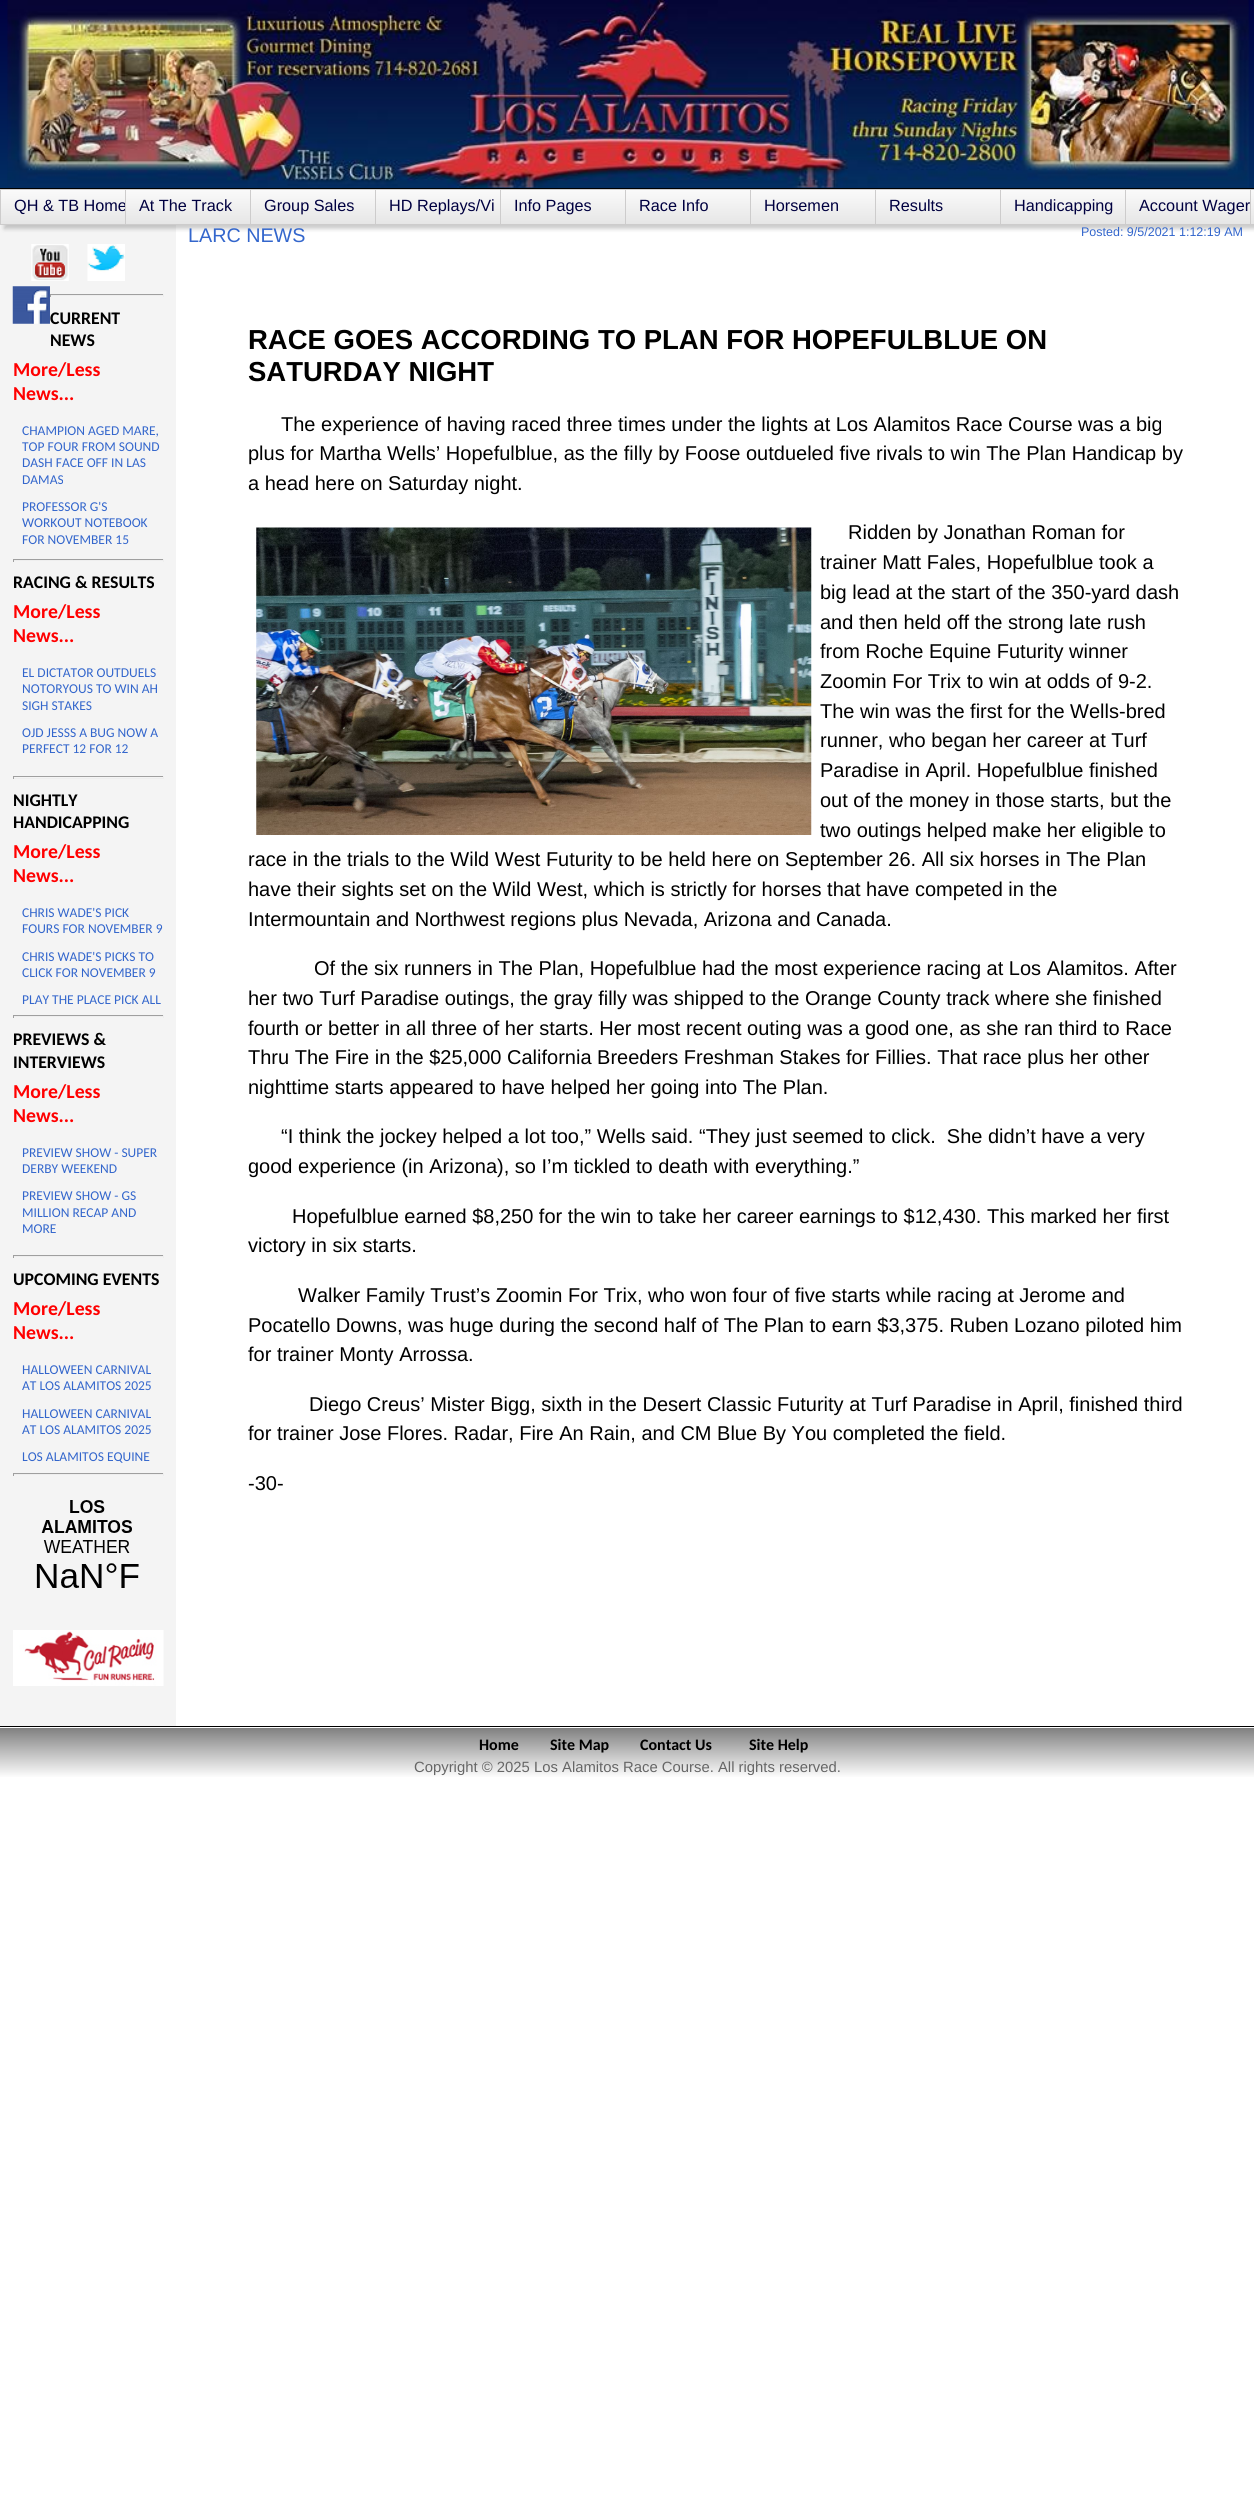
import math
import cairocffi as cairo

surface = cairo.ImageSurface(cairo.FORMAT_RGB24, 1254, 2515)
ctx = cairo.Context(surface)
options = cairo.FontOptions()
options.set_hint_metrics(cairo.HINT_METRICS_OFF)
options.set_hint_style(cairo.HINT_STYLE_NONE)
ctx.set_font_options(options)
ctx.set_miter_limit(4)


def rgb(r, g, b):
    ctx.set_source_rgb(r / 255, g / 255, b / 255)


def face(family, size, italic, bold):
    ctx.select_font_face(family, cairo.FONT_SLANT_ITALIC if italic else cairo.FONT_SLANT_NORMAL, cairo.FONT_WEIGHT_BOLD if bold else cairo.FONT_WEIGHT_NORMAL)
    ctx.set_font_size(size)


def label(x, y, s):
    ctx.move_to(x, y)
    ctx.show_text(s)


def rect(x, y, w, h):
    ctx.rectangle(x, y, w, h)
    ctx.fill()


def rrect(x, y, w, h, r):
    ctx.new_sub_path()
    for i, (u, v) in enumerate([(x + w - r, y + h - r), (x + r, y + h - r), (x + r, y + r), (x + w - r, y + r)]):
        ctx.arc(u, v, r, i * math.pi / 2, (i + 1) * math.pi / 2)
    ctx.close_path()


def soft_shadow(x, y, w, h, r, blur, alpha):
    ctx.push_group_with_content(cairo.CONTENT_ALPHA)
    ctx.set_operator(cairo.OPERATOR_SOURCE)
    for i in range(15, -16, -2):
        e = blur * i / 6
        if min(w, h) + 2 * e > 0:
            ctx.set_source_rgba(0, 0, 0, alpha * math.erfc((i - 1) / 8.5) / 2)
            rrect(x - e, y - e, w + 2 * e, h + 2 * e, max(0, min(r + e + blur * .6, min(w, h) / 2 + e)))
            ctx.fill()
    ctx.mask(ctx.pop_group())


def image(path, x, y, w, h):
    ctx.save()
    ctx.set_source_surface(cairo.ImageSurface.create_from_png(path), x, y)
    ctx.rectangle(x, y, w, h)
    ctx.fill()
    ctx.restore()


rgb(255, 255, 255)
ctx.paint()
gradient = cairo.LinearGradient(628, 0, 628, 188)
gradient.add_color_stop_rgba(0, 0, 0, 0.251, 1)
gradient.add_color_stop_rgba(1, 0.004, 0.176, 0.388, 1)
ctx.set_source(gradient)
rect(0, 0, 1254, 188)
rgb(0, 0, 0)
rect(0, 188, 1254, 1)
image('image0.png', 7, 0, 1242, 188)
rgb(244, 244, 244)
rect(0, 225, 176, 1501)
rgb(0, 0, 0)
soft_shadow(4, 193, 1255, 36, 0, 2, 0.2)
gradient = cairo.LinearGradient(628, 190, 628, 224)
gradient.add_color_stop_rgba(0, 0.98, 0.98, 0.98, 1)
gradient.add_color_stop_rgba(1, 0.902, 0.902, 0.902, 1)
ctx.set_source(gradient)
rect(1, 190, 1253, 34)
ctx.rectangle(0.5, 189.5, 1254, 35)
rgb(205, 204, 204)
ctx.set_line_width(1)
ctx.stroke()
rect(125, 190, 1, 34)
ctx.save()
ctx.rectangle(1, 190, 124, 34)
ctx.clip()
face('Liberation Sans', 16.25, 0, 0)
rgb(0, 0, 64)
label(14, 211, 'QH & TB Home')
ctx.restore()
rect(250, 190, 1, 34)
face('Liberation Sans', 16.25, 0, 0)
rgb(0, 0, 64)
label(139, 211, 'At The Track')
rgb(205, 204, 204)
rect(375, 190, 1, 34)
rgb(0, 0, 64)
label(264, 211, 'Group Sales')
rgb(205, 204, 204)
rect(500, 190, 1, 34)
rgb(0, 0, 64)
label(389, 211, 'HD Replays/Vi')
rgb(205, 204, 204)
rect(625, 190, 1, 34)
rgb(0, 0, 64)
label(514, 211, 'Info Pages')
rgb(205, 204, 204)
rect(750, 190, 1, 34)
rgb(0, 0, 64)
label(639, 211, 'Race Info')
rgb(205, 204, 204)
rect(875, 190, 1, 34)
rgb(0, 0, 64)
label(764, 211, 'Horsemen')
rgb(205, 204, 204)
rect(1000, 190, 1, 34)
rgb(0, 0, 64)
label(889, 211, 'Results')
rgb(205, 204, 204)
rect(1125, 190, 1, 34)
rgb(0, 0, 64)
label(1014, 211, 'Handicapping')
rgb(205, 204, 204)
rect(1250, 190, 1, 34)
rgb(0, 0, 64)
label(1139, 211, 'Account Wager')
image('image1.png', 31, 244, 38, 37)
image('image2.png', 87, 244, 38, 37)
image('image3.png', 12, 286, 38, 38)
rgb(159, 159, 159)
rect(50, 294, 114, 1)
rgb(238, 238, 238)
rect(163, 294, 1, 3)
rect(50, 295, 114, 1)
rgb(159, 159, 159)
rect(50, 294, 1, 3)
face('Carlito', 17.75, 0, 1)
rgb(0, 0, 0)
label(50, 324, 'CURRENT')
label(50, 346, 'NEWS')
face('Carlito', 19.75, 0, 1)
rgb(255, 0, 0)
label(13, 376, 'More/Less')
label(13, 400, 'News...')
face('Carlito', 13.5, 0, 0)
rgb(51, 102, 204)
label(22, 435, 'CHAMPION AGED MARE,')
label(22, 451, 'TOP FOUR FROM SOUND')
label(22, 467, 'DASH FACE OFF IN LAS')
label(22, 484, 'DAMAS')
label(22, 511, 'PROFESSOR G\'S')
label(22, 527, 'WORKOUT NOTEBOOK')
label(22, 544, 'FOR NOVEMBER 15')
rgb(159, 159, 159)
rect(13, 559, 151, 1)
rgb(238, 238, 238)
rect(163, 559, 1, 3)
rect(13, 560, 151, 1)
rgb(159, 159, 159)
rect(13, 559, 1, 3)
face('Carlito', 17.75, 0, 1)
rgb(0, 0, 0)
label(13, 588, 'RACING & RESULTS')
face('Carlito', 19.75, 0, 1)
rgb(255, 0, 0)
label(13, 618, 'More/Less')
label(13, 642, 'News...')
face('Carlito', 13.5, 0, 0)
rgb(51, 102, 204)
label(22, 677, 'EL DICTATOR OUTDUELS')
label(22, 693, 'NOTORYOUS TO WIN AH')
label(22, 710, 'SIGH STAKES')
label(22, 737, 'OJD JESSS A BUG NOW A')
label(22, 753, 'PERFECT 12 FOR 12')
rgb(159, 159, 159)
rect(13, 776, 151, 1)
rgb(238, 238, 238)
rect(163, 776, 1, 3)
rect(13, 778, 151, 1)
rgb(159, 159, 159)
rect(13, 776, 1, 3)
face('Carlito', 17.75, 0, 1)
rgb(0, 0, 0)
label(13, 806, 'NIGHTLY')
label(13, 828, 'HANDICAPPING')
face('Carlito', 19.75, 0, 1)
rgb(255, 0, 0)
label(13, 858, 'More/Less')
label(13, 882, 'News...')
face('Carlito', 13.5, 0, 0)
rgb(51, 102, 204)
label(22, 917, 'CHRIS WADE\'S PICK')
label(22, 933, 'FOURS FOR NOVEMBER 9')
label(22, 961, 'CHRIS WADE\'S PICKS TO')
label(22, 977, 'CLICK FOR NOVEMBER 9')
label(22, 1004, 'PLAY THE PLACE PICK ALL')
rgb(159, 159, 159)
rect(13, 1015, 151, 1)
rgb(238, 238, 238)
rect(163, 1015, 1, 3)
rect(13, 1016, 151, 1)
rgb(159, 159, 159)
rect(13, 1015, 1, 3)
face('Carlito', 17.75, 0, 1)
rgb(0, 0, 0)
label(13, 1045, 'PREVIEWS &')
label(13, 1068, 'INTERVIEWS')
face('Carlito', 19.75, 0, 1)
rgb(255, 0, 0)
label(13, 1098, 'More/Less')
label(13, 1122, 'News...')
face('Carlito', 13.5, 0, 0)
rgb(51, 102, 204)
label(22, 1157, 'PREVIEW SHOW - SUPER')
label(22, 1173, 'DERBY WEEKEND')
label(22, 1200, 'PREVIEW SHOW - GS')
label(22, 1217, 'MILLION RECAP AND')
label(22, 1233, 'MORE')
rgb(159, 159, 159)
rect(13, 1255, 151, 1)
rgb(238, 238, 238)
rect(163, 1255, 1, 3)
rect(13, 1256, 151, 1)
rgb(159, 159, 159)
rect(13, 1255, 1, 3)
face('Carlito', 17.75, 0, 1)
rgb(0, 0, 0)
label(13, 1285, 'UPCOMING EVENTS')
face('Carlito', 19.75, 0, 1)
rgb(255, 0, 0)
label(13, 1315, 'More/Less')
label(13, 1339, 'News...')
face('Carlito', 13.5, 0, 0)
rgb(51, 102, 204)
label(22, 1374, 'HALLOWEEN CARNIVAL')
label(22, 1390, 'AT LOS ALAMITOS 2025')
label(22, 1418, 'HALLOWEEN CARNIVAL')
label(22, 1434, 'AT LOS ALAMITOS 2025')
label(22, 1461, 'LOS ALAMITOS EQUINE')
rgb(159, 159, 159)
rect(13, 1473, 151, 1)
rgb(238, 238, 238)
rect(163, 1473, 1, 3)
rect(13, 1474, 151, 1)
rgb(159, 159, 159)
rect(13, 1473, 1, 3)
image('image4.png', 36, 1500, 103, 88)
image('image5.png', 13, 1630, 151, 56)
face('Liberation Sans', 19.75, 0, 0)
rgb(51, 102, 204)
label(188, 242, 'LARC NEWS')
face('Liberation Sans', 12.5, 0, 0)
label(1081, 236, 'Posted: 9/5/2021 1:12:19 AM')
face('Liberation Sans', 27.5, 0, 1)
rgb(0, 0, 0)
label(248, 349, 'RACE GOES ACCORDING TO PLAN FOR HOPEFULBLUE ON')
label(248, 381, 'SATURDAY NIGHT')
face('Liberation Sans', 20, 0, 0)
label(281, 431, 'The experience of having raced three times under the lights at Los Alamitos Race Course was a big')
label(248, 460, 'plus for Martha Wells’ Hopefulblue, as the filly by Foose outdueled five rivals to win The Plan Handicap by')
label(248, 490, 'a head here on Saturday night.')
image('image6.png', 256, 527, 556, 308)
label(848, 539, 'Ridden by Jonathan Roman for')
label(820, 569, 'trainer Matt Fales, Hopefulblue took a')
label(820, 599, 'big lead at the start of the 350-yard dash')
label(820, 629, 'and then held off the strong late rush')
label(820, 658, 'from Roche Equine Futurity winner')
label(820, 688, 'Zoomin For Trix to win at odds of 9-2.')
label(820, 718, 'The win was the first for the Wells-bred')
label(820, 747, 'runner, who began her career at Turf')
label(820, 777, 'Paradise in April. Hopefulblue finished')
label(820, 807, 'out of the money in those starts, but the')
label(820, 837, 'two outings helped make her eligible to')
label(248, 866, 'race in the trials to the Wild West Futurity to be held here on September 26. All six horses in The Plan')
label(248, 896, 'have their sights set on the Wild West, which is strictly for horses that have competed in the')
label(248, 926, 'Intermountain and Northwest regions plus Nevada, Arizona and Canada.')
label(314, 975, 'Of the six runners in The Plan, Hopefulblue had the most experience racing at Los Alamitos. After')
label(248, 1005, 'her two Turf Paradise outings, the gray filly was shipped to the Orange County track where she finished')
label(248, 1035, 'fourth or better in all three of her starts. Her most recent outing was a good one, as she ran third to Race')
label(248, 1064, 'Thru The Fire in the $25,000 California Breeders Freshman Stakes for Fillies. That race plus her other')
label(248, 1094, 'nighttime starts appeared to have helped her going into The Plan.')
label(281, 1143, '“I think the jockey helped a lot too,” Wells said. “They just seemed to click.  She didn’t have a very')
label(248, 1173, 'good experience (in Arizona), so I’m tickled to death with everything.”')
label(292, 1223, 'Hopefulblue earned $8,250 for the win to take her career earnings to $12,430. This marked her first')
label(248, 1252, 'victory in six starts.')
label(298, 1302, 'Walker Family Trust’s Zoomin For Trix, who won four of five starts while racing at Jerome and')
label(248, 1332, 'Pocatello Downs, was huge during the second half of The Plan to earn $3,375. Ruben Lozano piloted him')
label(248, 1361, 'for trainer Monty Arrossa.')
label(309, 1411, 'Diego Creus’ Mister Bigg, sixth in the Desert Classic Futurity at Turf Paradise in April, finished third')
label(248, 1440, 'for trainer Jose Flores. Radar, Fire An Rain, and CM Blue By You completed the field.')
label(248, 1490, '-30-')
gradient = cairo.LinearGradient(0, 1728, 0, 1778)
gradient.add_color_stop_rgba(0, 0.502, 0.502, 0.502, 1)
gradient.add_color_stop_rgba(1, 1, 1, 1, 1)
ctx.set_source(gradient)
rect(0, 1728, 1254, 49)
rgb(0, 0, 0)
rect(0, 1726, 1254, 1)
face('Carlito', 16, 0, 1)
label(479, 1750, 'Home')
label(550, 1750, 'Site Map')
label(640, 1750, 'Contact Us')
label(749, 1750, 'Site Help')
face('Liberation Sans', 14.85, 0, 0)
rgb(102, 102, 102)
label(414, 1772, 'Copyright © 2025 Los Alamitos Race Course. All rights reserved.')
surface.write_to_png('render.png')
